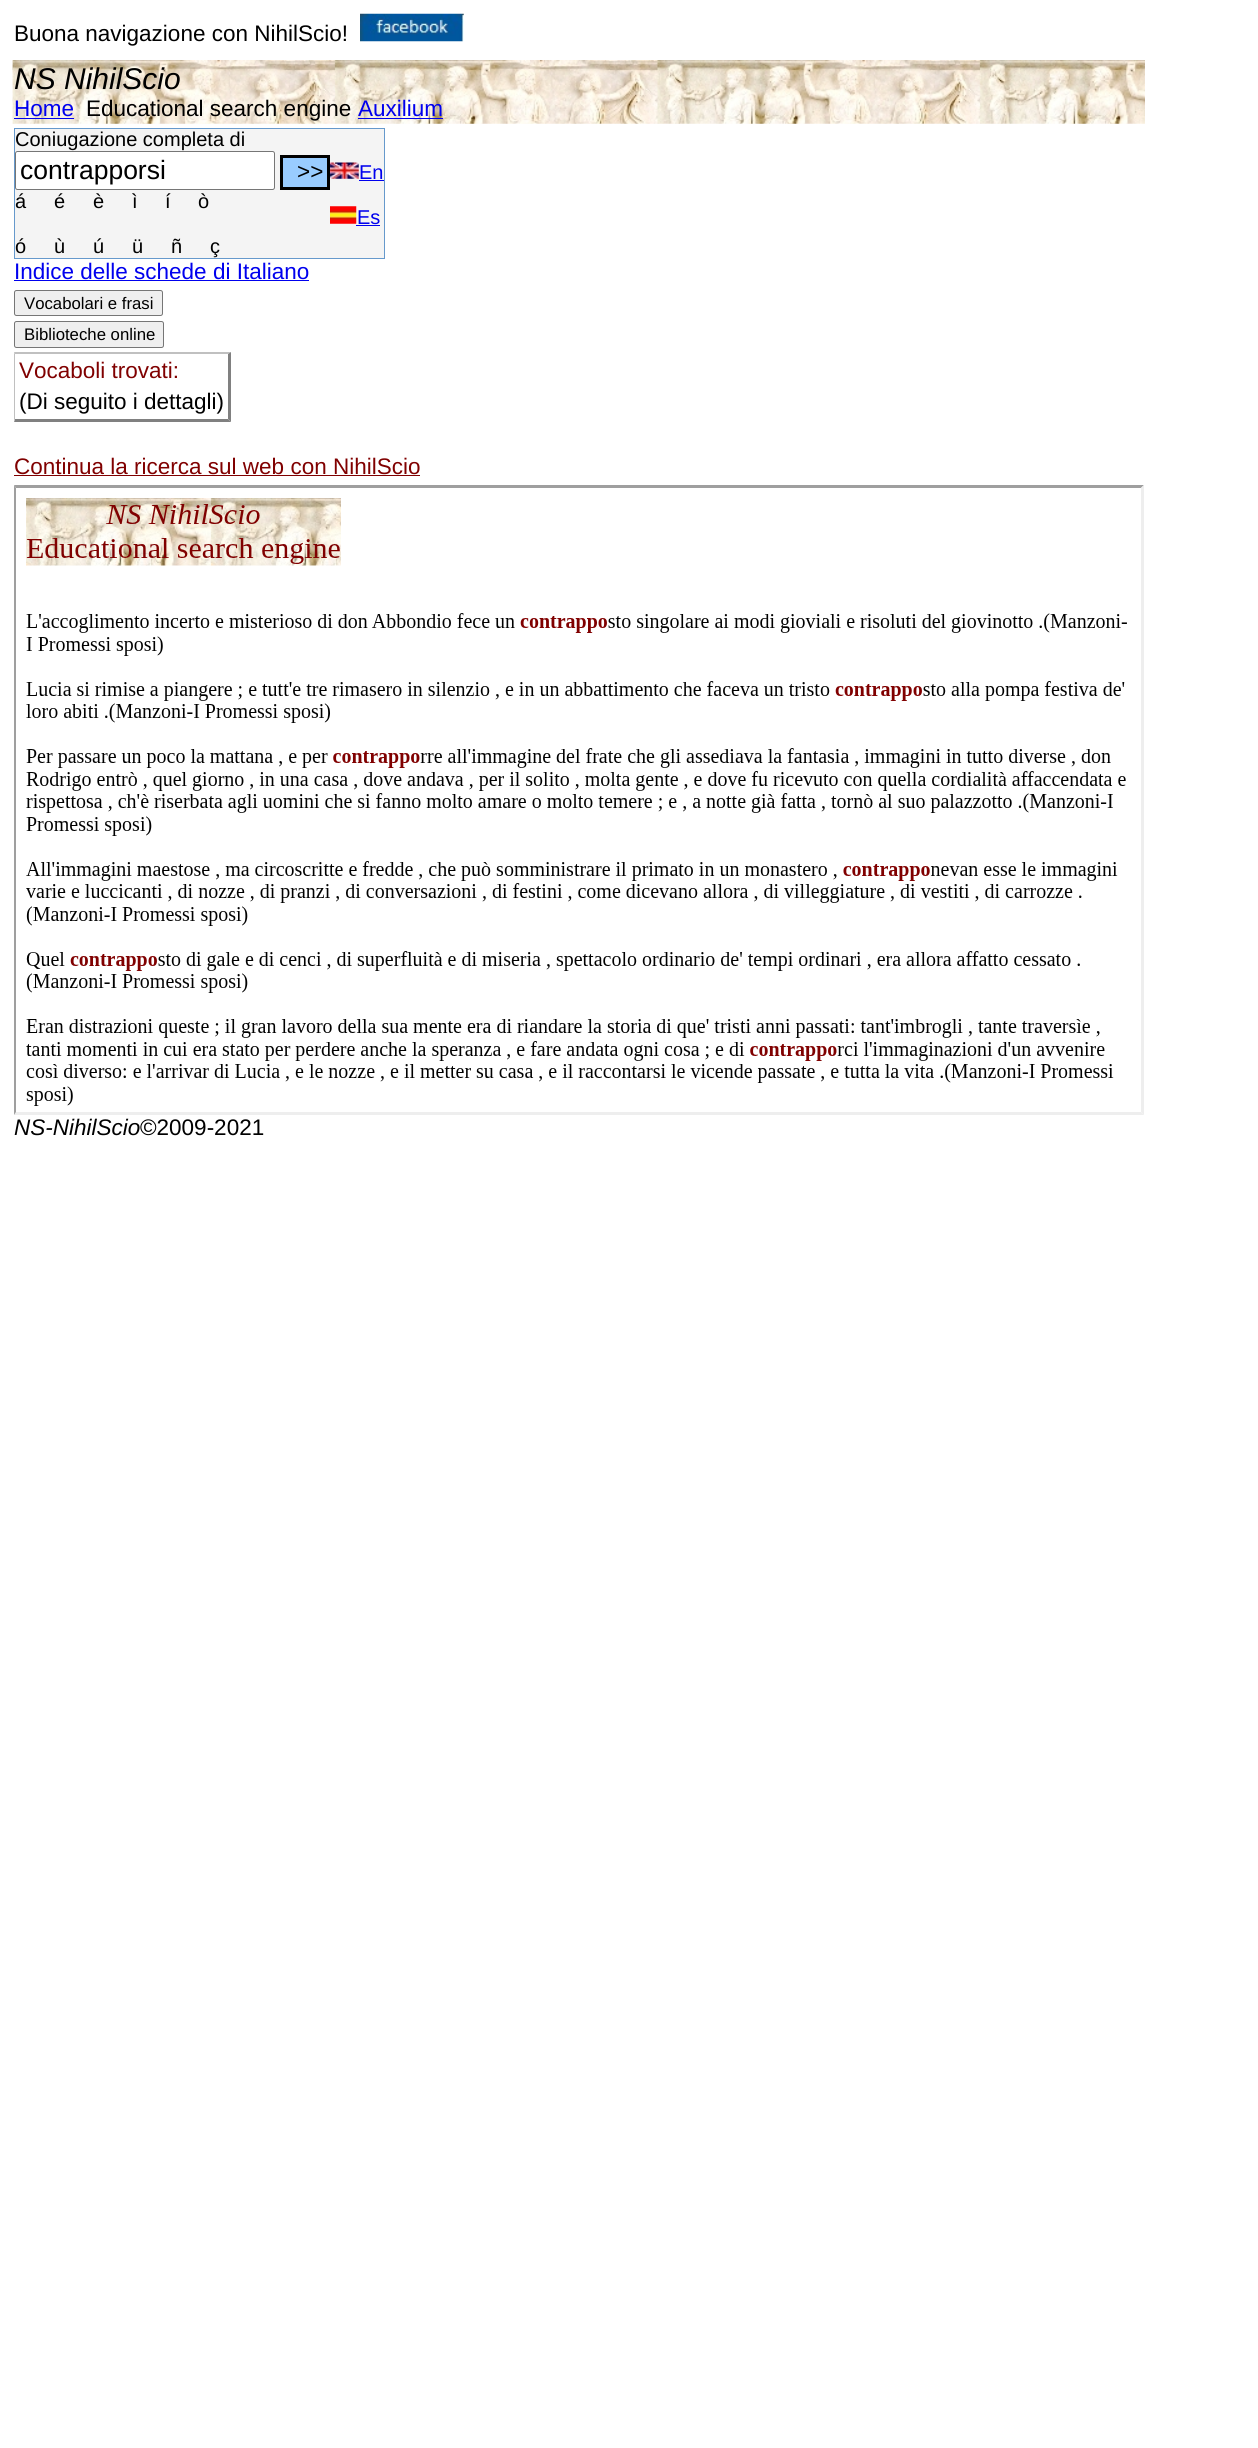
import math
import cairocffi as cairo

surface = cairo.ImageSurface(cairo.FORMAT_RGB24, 1258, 2448)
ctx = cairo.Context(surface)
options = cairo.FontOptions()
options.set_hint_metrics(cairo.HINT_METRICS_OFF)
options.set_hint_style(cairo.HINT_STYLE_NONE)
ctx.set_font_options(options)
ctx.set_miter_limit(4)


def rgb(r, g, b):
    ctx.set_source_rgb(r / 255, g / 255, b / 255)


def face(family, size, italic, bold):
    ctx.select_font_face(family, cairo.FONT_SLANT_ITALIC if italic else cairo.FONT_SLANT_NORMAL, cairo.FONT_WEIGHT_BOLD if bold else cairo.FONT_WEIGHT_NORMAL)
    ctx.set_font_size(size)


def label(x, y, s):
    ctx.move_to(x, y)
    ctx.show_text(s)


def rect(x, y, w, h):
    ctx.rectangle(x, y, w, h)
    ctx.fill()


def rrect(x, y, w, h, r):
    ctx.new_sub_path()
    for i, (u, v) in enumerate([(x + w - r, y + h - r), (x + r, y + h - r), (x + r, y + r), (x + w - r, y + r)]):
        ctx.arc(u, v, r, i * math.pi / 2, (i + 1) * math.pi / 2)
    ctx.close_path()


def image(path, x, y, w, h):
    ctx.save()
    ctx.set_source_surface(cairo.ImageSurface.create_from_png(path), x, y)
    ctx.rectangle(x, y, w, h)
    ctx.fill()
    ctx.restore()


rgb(255, 255, 255)
ctx.paint()
face('Liberation Sans', 22.5, 0, 0)
rgb(0, 0, 0)
label(14, 41, 'Buona navigazione con NihilScio!')
image('image0.png', 360, 13, 104, 29)
image('image1.png', 12, 60, 1133, 64)
face('Liberation Sans', 30, 1, 0)
label(14, 89, 'NS NihilScio')
face('Liberation Sans', 22.5, 0, 0)
rgb(0, 0, 238)
label(14, 116, 'Home')
rect(14, 118, 60, 1)
rgb(0, 0, 0)
label(86, 116, 'Educational search engine')
rgb(0, 0, 238)
label(358, 116, 'Auxilium')
rect(358, 118, 85, 1)
rgb(244, 244, 244)
ctx.rectangle(14.5, 128.5, 370, 130)
ctx.fill_preserve()
rgb(102, 153, 204)
ctx.set_line_width(1)
ctx.stroke()
face('Liberation Sans', 20, 0, 0)
rgb(0, 0, 0)
label(15, 146, 'Coniugazione completa di')
rgb(255, 255, 255)
rrect(15.5, 151.5, 259, 38, 2)
ctx.fill_preserve()
rgb(118, 118, 118)
ctx.stroke()
face('Liberation Sans', 26.5, 0, 0)
rgb(0, 0, 0)
label(20, 179, 'contrapporsi')
rgb(153, 204, 255)
ctx.rectangle(281.5, 156.5, 47, 32)
ctx.fill_preserve()
rgb(0, 0, 0)
ctx.set_line_width(3)
ctx.stroke()
face('Liberation Sans', 22.5, 0, 0)
label(297, 179, '>>')
face('Liberation Sans', 20, 0, 0)
label(15, 208, 'á')
label(54, 208, 'é')
label(93, 208, 'è')
label(132, 208, 'ì')
label(165, 208, 'í')
label(198, 208, 'ò')
label(15, 253, 'ó')
label(54, 253, 'ù')
label(93, 253, 'ú')
label(132, 253, 'ü')
label(171, 253, 'ñ')
label(210, 253, 'ç')
image('image2.png', 330, 162, 29, 17)
rgb(0, 0, 238)
label(359, 179, 'En')
rect(359, 180, 25, 1)
image('image3.png', 330, 206, 27, 18)
label(357, 224, 'Es')
rect(356, 225, 24, 1)
face('Liberation Sans', 22.5, 0, 0)
label(14, 279, 'Indice delle schede di Italiano')
rect(14, 280, 295, 1)
rgb(239, 239, 239)
rrect(14.5, 290.5, 148, 25, 2)
ctx.fill_preserve()
rgb(118, 118, 118)
ctx.set_line_width(1)
ctx.stroke()
face('Liberation Sans', 16.75, 0, 0)
rgb(0, 0, 0)
label(24, 309, 'Vocabolari e frasi')
rgb(239, 239, 239)
rrect(14.5, 321.5, 149, 26, 2)
ctx.fill_preserve()
rgb(118, 118, 118)
ctx.stroke()
rgb(0, 0, 0)
label(24, 340, 'Biblioteche online')
rgb(192, 192, 192)
ctx.new_path()
ctx.move_to(14, 352)
ctx.line_to(231, 352)
ctx.line_to(228, 354)
ctx.line_to(15, 354)
ctx.close_path()
ctx.fill()
rgb(128, 128, 128)
ctx.new_path()
ctx.move_to(231, 352)
ctx.line_to(231, 422)
ctx.line_to(228, 419)
ctx.line_to(228, 354)
ctx.close_path()
ctx.fill()
ctx.new_path()
ctx.move_to(231, 422)
ctx.line_to(14, 422)
ctx.line_to(15, 419)
ctx.line_to(228, 419)
ctx.close_path()
ctx.fill()
rgb(192, 192, 192)
ctx.new_path()
ctx.move_to(14, 422)
ctx.line_to(14, 352)
ctx.line_to(15, 354)
ctx.line_to(15, 419)
ctx.close_path()
ctx.fill()
face('Liberation Sans', 22.5, 0, 0)
rgb(128, 0, 0)
label(19, 378, 'Vocaboli trovati:')
rgb(0, 0, 0)
label(19, 409, '(Di seguito i dettagli)')
rgb(128, 0, 0)
label(14, 474, 'Continua la ricerca sul web con NihilScio')
rect(14, 475, 406, 1)
rgb(159, 159, 159)
ctx.new_path()
ctx.move_to(14, 485)
ctx.line_to(1144, 485)
ctx.line_to(1141, 488)
ctx.line_to(16, 488)
ctx.close_path()
ctx.fill()
rgb(238, 238, 238)
ctx.new_path()
ctx.move_to(1144, 485)
ctx.line_to(1144, 1115)
ctx.line_to(1141, 1112)
ctx.line_to(1141, 488)
ctx.close_path()
ctx.fill()
ctx.new_path()
ctx.move_to(1144, 1115)
ctx.line_to(14, 1115)
ctx.line_to(16, 1112)
ctx.line_to(1141, 1112)
ctx.close_path()
ctx.fill()
rgb(159, 159, 159)
ctx.new_path()
ctx.move_to(14, 1115)
ctx.line_to(14, 485)
ctx.line_to(16, 488)
ctx.line_to(16, 1112)
ctx.close_path()
ctx.fill()
image('image4.png', 26, 498, 1101, 608)
face('Liberation Sans', 22.5, 1, 0)
rgb(0, 0, 0)
label(14, 1135, 'NS-NihilScio')
face('Liberation Sans', 22.5, 0, 0)
label(140, 1135, '©2009-2021')
surface.write_to_png('render.png')
